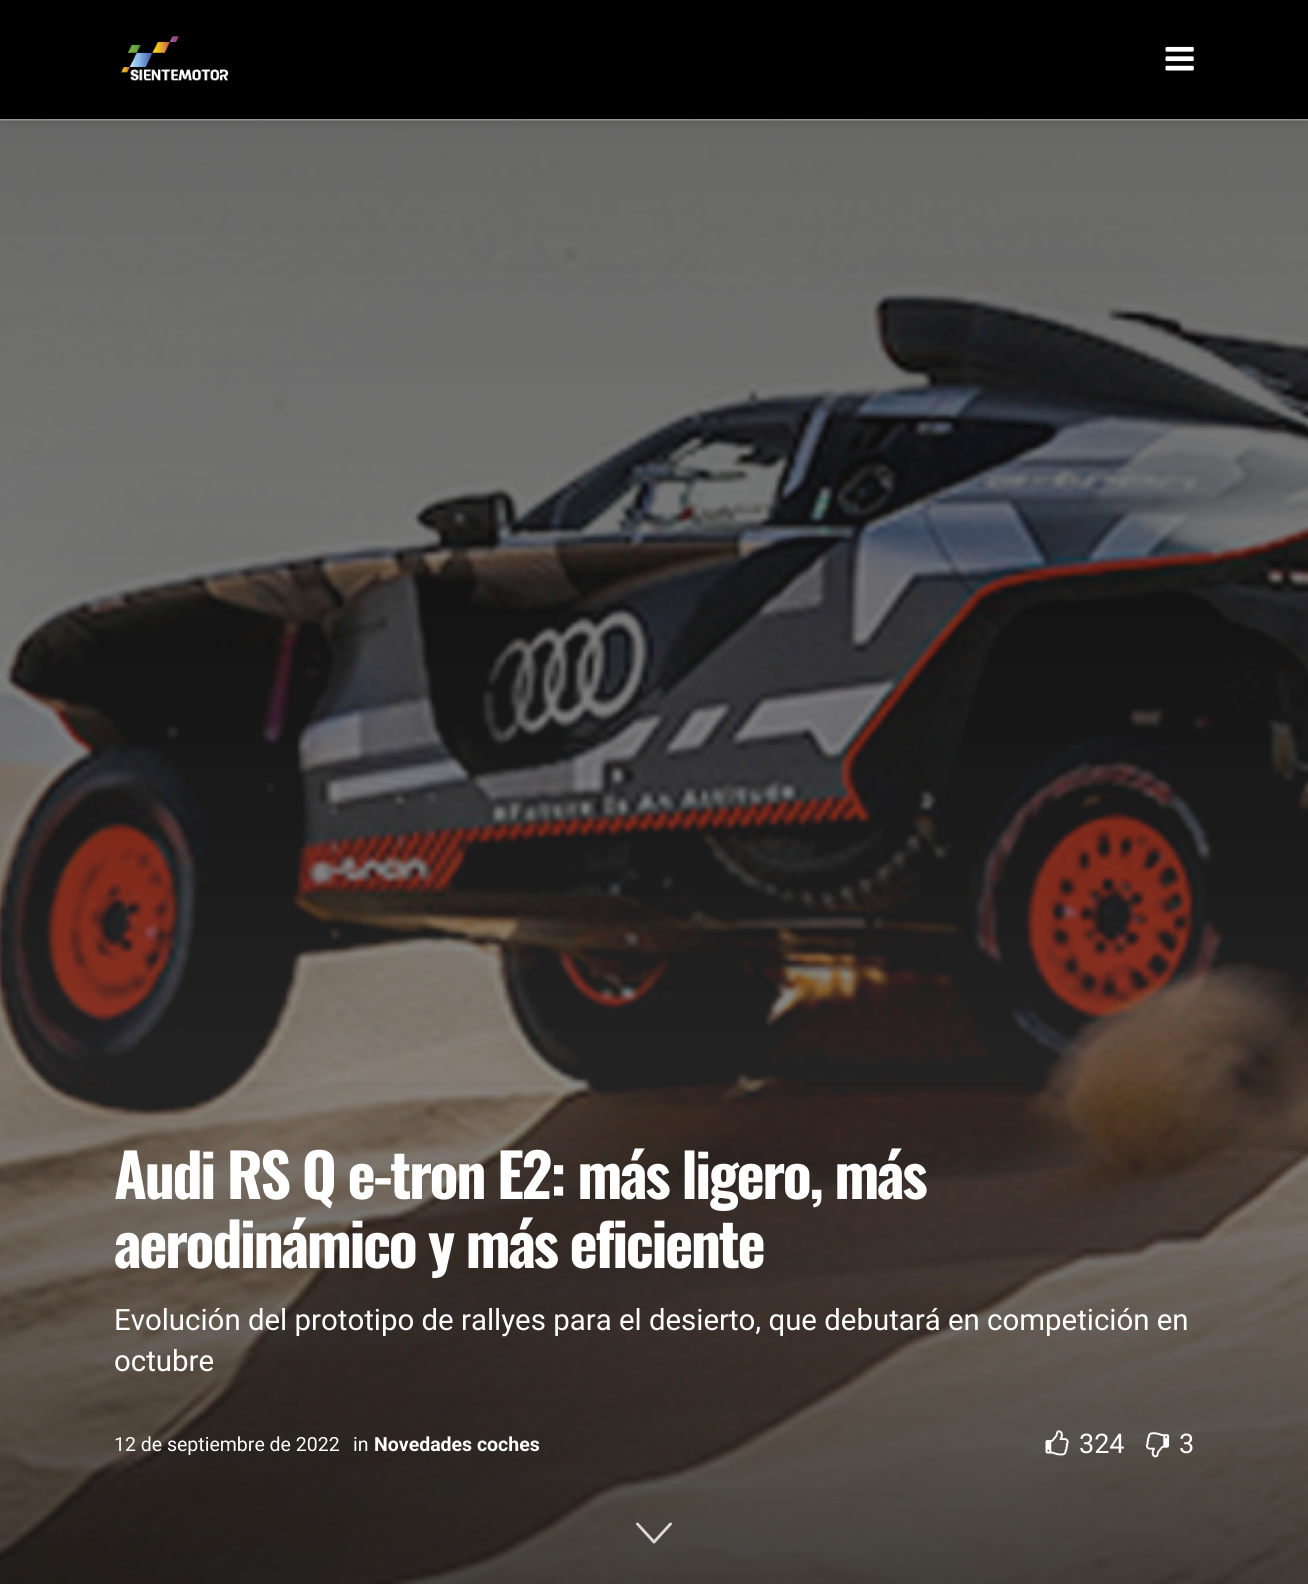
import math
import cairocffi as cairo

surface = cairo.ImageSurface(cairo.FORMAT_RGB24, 1308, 1584)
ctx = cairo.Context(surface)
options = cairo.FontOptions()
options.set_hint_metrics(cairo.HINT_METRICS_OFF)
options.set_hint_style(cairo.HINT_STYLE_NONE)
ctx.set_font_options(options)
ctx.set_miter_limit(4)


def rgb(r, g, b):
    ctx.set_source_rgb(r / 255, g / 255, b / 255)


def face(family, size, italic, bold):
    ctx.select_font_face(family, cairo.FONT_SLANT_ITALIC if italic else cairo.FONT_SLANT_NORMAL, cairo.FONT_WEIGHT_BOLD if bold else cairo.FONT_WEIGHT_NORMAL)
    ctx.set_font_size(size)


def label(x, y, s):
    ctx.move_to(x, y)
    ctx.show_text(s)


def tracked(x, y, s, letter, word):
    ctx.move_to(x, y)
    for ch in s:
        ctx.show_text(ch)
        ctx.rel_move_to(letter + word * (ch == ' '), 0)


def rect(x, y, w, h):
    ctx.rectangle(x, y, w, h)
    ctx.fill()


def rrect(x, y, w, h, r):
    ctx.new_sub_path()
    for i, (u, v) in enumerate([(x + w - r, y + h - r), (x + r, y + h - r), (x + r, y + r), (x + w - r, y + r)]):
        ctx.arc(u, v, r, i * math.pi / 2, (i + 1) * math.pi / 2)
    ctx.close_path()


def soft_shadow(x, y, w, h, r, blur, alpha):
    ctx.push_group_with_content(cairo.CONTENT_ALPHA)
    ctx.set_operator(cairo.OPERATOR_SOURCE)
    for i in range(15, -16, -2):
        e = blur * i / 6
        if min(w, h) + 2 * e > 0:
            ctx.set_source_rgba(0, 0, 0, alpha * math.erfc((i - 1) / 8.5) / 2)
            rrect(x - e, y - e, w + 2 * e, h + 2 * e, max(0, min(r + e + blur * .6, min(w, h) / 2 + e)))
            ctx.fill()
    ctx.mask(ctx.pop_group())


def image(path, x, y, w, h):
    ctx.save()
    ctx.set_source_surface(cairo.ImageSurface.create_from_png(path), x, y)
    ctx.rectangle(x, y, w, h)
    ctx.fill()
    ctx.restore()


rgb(255, 255, 255)
ctx.paint()
gradient = cairo.LinearGradient(654, 0, 654, 1584)
gradient.add_color_stop_rgba(0, 0, 0, 0, 1)
gradient.add_color_stop_rgba(1, 0.329, 0.329, 0.329, 1)
ctx.set_source(gradient)
rect(0, 119, 1308, 1465)
image('image2.png', 0, 119, 1308, 1465)
rgb(0, 0, 0)
soft_shadow(0, 3, 1308, 120, 0, 4.5, 0.1)
ctx.set_source_rgba(1, 1, 1, 0.2)
rect(0, 119, 1308, 1)
ctx.set_source_rgba(1, 1, 1, 0.15)
rect(0, 119, 1308, 2)
rgb(0, 0, 0)
rect(0, 0, 1308, 119)
image('image0.png', 121, 36, 108, 45)
image('image1.png', 1165, 46, 29, 25)
gradient = cairo.LinearGradient(654, 1062, 654, 1584)
gradient.add_color_stop_rgba(0, 0, 0, 0, 0)
gradient.add_color_stop_rgba(1, 0, 0, 0, 0.55)
ctx.set_source(gradient)
rect(0, 1082, 1308, 502)
face('Oswald', 60, 0, 1)
rgb(255, 255, 255)
tracked(114, 1199, 'Audi RS Q e-tron E2: más ligero, más', -2.4, 0)
tracked(114, 1268, 'aerodinámico y más eficiente', -2.4, 0)
face('Roboto', 29.4, 0, 0)
label(114, 1330, 'Evolución del prototipo de rallyes para el desierto, que debutará en competición en')
label(114, 1371, 'octubre')
face('Roboto', 19.5, 0, 0)
label(114, 1451, '12 de septiembre de 2022')
label(353, 1451, 'in')
face('Roboto', 19.5, 0, 1)
label(374, 1451, 'Novedades coches')
image('image3.png', 1045, 1430, 24, 26)
face('Roboto', 27, 0, 0)
label(1079, 1453, '324')
image('image4.png', 1145, 1432, 25, 26)
label(1179, 1453, '3')
image('image5.png', 636, 1522, 36, 22)
surface.write_to_png('render.png')
